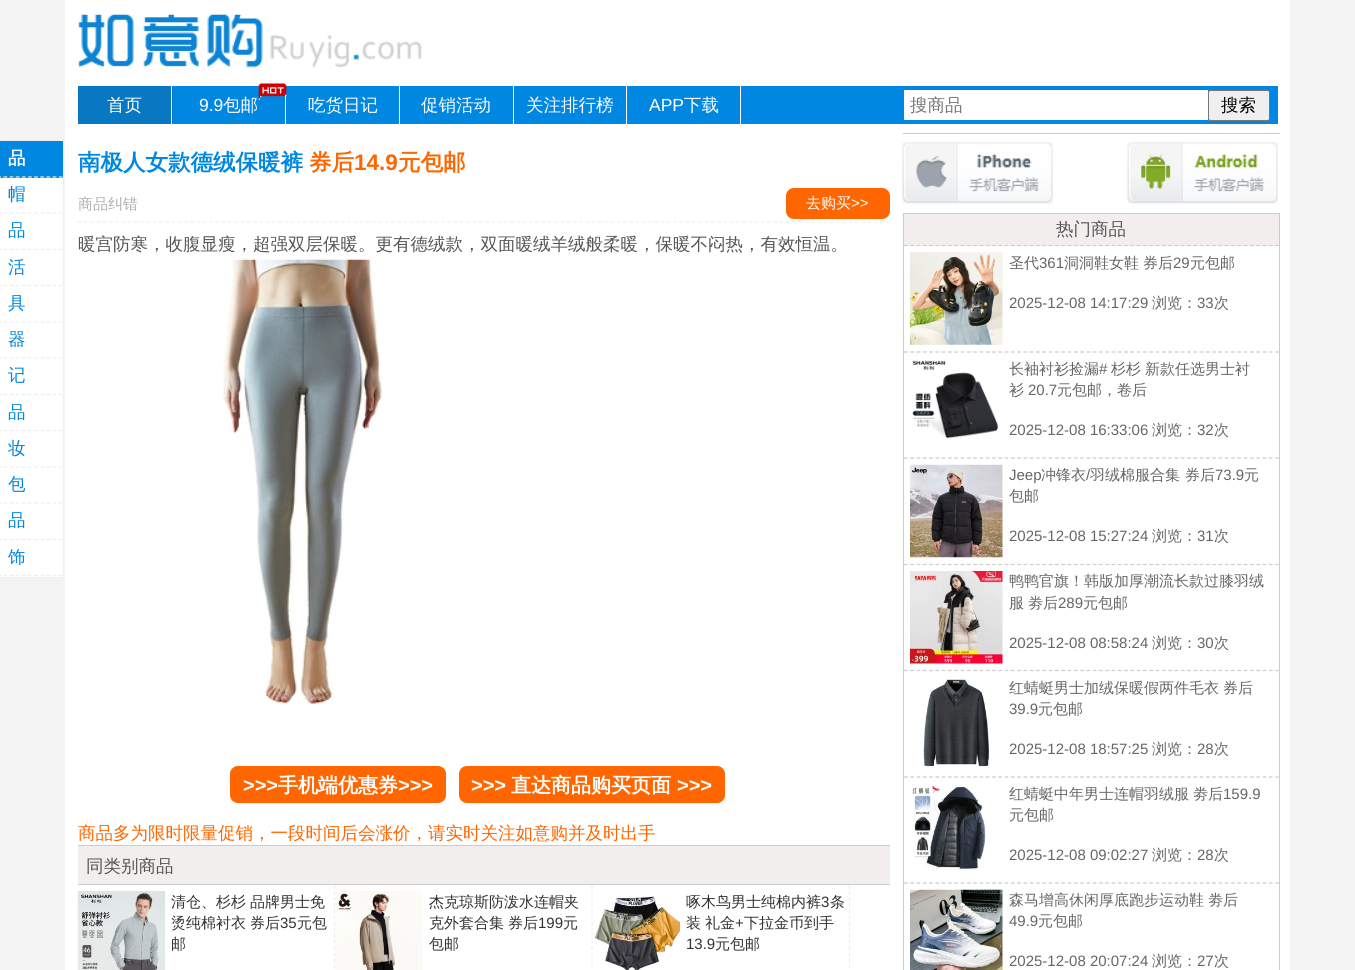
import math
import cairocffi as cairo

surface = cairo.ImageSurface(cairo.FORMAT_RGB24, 1355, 970)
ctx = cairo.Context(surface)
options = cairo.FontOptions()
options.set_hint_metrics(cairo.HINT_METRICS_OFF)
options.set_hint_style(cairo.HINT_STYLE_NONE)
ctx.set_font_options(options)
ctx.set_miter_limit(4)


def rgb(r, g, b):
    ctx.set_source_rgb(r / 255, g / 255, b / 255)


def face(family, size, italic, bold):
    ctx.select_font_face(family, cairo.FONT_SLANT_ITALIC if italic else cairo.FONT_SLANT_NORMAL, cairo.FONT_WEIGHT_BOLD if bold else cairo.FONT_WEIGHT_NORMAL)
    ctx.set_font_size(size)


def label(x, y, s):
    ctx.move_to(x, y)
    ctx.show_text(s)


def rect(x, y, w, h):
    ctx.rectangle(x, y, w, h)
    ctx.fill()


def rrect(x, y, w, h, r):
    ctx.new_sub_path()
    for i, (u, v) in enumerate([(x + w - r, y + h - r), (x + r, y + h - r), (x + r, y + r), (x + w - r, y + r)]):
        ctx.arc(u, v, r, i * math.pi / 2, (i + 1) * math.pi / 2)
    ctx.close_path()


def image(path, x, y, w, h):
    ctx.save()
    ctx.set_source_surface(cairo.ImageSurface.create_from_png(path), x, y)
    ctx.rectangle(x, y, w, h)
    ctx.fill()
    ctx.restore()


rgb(243, 243, 243)
ctx.paint()
rgb(255, 255, 255)
rect(0, 178, 63, 399)
ctx.rectangle(-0.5, 140.5, 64, 437)
rgb(238, 238, 238)
ctx.set_line_width(1)
ctx.stroke()
rgb(0, 135, 225)
rect(0, 141, 63, 37)
ctx.new_path()
ctx.move_to(-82.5, 177)
ctx.line_to(62.5, 177)
ctx.move_to(-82.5, 213)
ctx.line_to(62.5, 213)
rgb(238, 238, 238)
ctx.set_line_width(1.2)
ctx.set_dash([3.75, 2.39])
ctx.stroke()
face('WenQuanYi Zen Hei', 17.5, 0, 1)
rgb(255, 255, 255)
label(8, 164, '品')
face('WenQuanYi Zen Hei Medium', 17.5, 0, 0)
rgb(0, 135, 225)
label(8, 200, '帽')
ctx.new_path()
ctx.move_to(-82.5, 249.5)
ctx.line_to(62.5, 249.5)
ctx.move_to(-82.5, 285.5)
ctx.line_to(62.5, 285.5)
rgb(238, 238, 238)
ctx.stroke()
rgb(0, 135, 225)
label(8, 236, '品')
label(8, 273, '活')
ctx.new_path()
ctx.move_to(-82.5, 322)
ctx.line_to(62.5, 322)
ctx.move_to(-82.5, 358)
ctx.line_to(62.5, 358)
rgb(238, 238, 238)
ctx.stroke()
rgb(0, 135, 225)
label(8, 309, '具')
label(8, 345, '器')
ctx.new_path()
ctx.move_to(-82.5, 394.5)
ctx.line_to(62.5, 394.5)
ctx.move_to(-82.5, 430.5)
ctx.line_to(62.5, 430.5)
rgb(238, 238, 238)
ctx.stroke()
rgb(0, 135, 225)
label(8, 381, '记')
label(8, 418, '品')
ctx.new_path()
ctx.move_to(-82.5, 467)
ctx.line_to(62.5, 467)
ctx.move_to(-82.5, 503)
ctx.line_to(62.5, 503)
rgb(238, 238, 238)
ctx.stroke()
rgb(0, 135, 225)
label(8, 454, '妆')
label(8, 490, '包')
ctx.new_path()
ctx.move_to(-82.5, 539.5)
ctx.line_to(62.5, 539.5)
ctx.move_to(-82.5, 575.5)
ctx.line_to(62.5, 575.5)
rgb(238, 238, 238)
ctx.stroke()
rgb(0, 135, 225)
label(8, 526, '品')
label(8, 563, '饰')
rgb(255, 255, 255)
rect(65, 0, 1225, 970)
image('image0.png', 78, 14, 344, 54)
rgb(0, 135, 225)
rect(173, 86, 1105, 38)
rgb(9, 120, 194)
rect(78, 86, 95, 38)
rgb(255, 255, 255)
rect(171, 86, 1, 38)
label(107, 111, '首页')
rect(285, 95, 1, 29)
image('image1.png', 258, 83, 29, 17)
face('Liberation Sans', 17.5, 0, 0)
label(199, 111, '9.9')
face('WenQuanYi Zen Hei Medium', 17.5, 0, 0)
label(223, 111, '包邮')
rect(399, 86, 1, 38)
label(308, 111, '吃货日记')
rect(513, 86, 1, 38)
label(421, 111, '促销活动')
rect(626, 86, 1, 38)
label(526, 111, '关注排行榜')
rect(740, 86, 1, 38)
face('Liberation Sans', 17.5, 0, 0)
label(649, 111, 'APP')
face('WenQuanYi Zen Hei Medium', 17.5, 0, 0)
label(684, 111, '下载')
rect(904, 90, 304, 30)
rgb(117, 117, 117)
label(910, 111, '搜商品')
rgb(239, 239, 239)
rrect(1208.5, 90.5, 61, 30, 2)
ctx.fill_preserve()
rgb(118, 118, 118)
ctx.set_line_width(1)
ctx.set_dash([])
ctx.stroke()
rgb(0, 0, 0)
label(1221, 111, '搜索')
face('WenQuanYi Zen Hei', 22.5, 0, 1)
rgb(0, 135, 225)
label(78, 170, '南极人女款德绒保暖裤')
rgb(255, 102, 0)
label(309, 170, '券后')
face('Liberation Sans', 22.5, 0, 1)
label(354, 170, '14.9')
face('WenQuanYi Zen Hei', 22.5, 0, 1)
label(398, 170, '元包邮')
ctx.new_path()
ctx.move_to(77.5, 222)
ctx.line_to(890, 222)
rgb(238, 238, 238)
ctx.set_line_width(1.2)
ctx.set_dash([3.75, 2.52])
ctx.stroke()
face('WenQuanYi Zen Hei Medium', 15, 0, 0)
rgb(176, 176, 176)
label(78, 209, '商品纠错')
rgb(255, 102, 0)
rrect(786, 188, 104, 31, 8)
ctx.fill()
rgb(255, 255, 255)
label(806, 208, '去购买')
face('Liberation Sans', 15, 0, 0)
label(851, 208, '>>')
face('WenQuanYi Zen Hei Medium', 17.5, 0, 0)
rgb(85, 85, 85)
label(78, 250, '暖宫防寒，收腹显瘦，超强双层保暖。更有德绒款，双面暖绒羊绒般柔暖，保暖不闷热，有效恒温。')
image('image2.png', 222, 259, 161, 446)
rgb(255, 102, 0)
rrect(230, 766, 216, 37, 8)
ctx.fill()
face('Liberation Sans', 20, 0, 1)
rgb(255, 255, 255)
label(243, 792, '>>>')
face('WenQuanYi Zen Hei', 20, 0, 1)
label(278, 792, '手机端优惠券')
face('Liberation Sans', 20, 0, 1)
label(398, 792, '>>>')
rgb(255, 102, 0)
rrect(459, 766, 266, 37, 8)
ctx.fill()
rgb(255, 255, 255)
label(471, 792, '>>>')
face('WenQuanYi Zen Hei', 20, 0, 1)
label(511, 792, '直达商品购买页面')
face('Liberation Sans', 20, 0, 1)
label(677, 792, '>>>')
face('WenQuanYi Zen Hei Medium', 17.5, 0, 0)
rgb(255, 102, 0)
label(78, 839, '商品多为限时限量促销，一段时间后会涨价，请实时关注如意购并及时出手')
rgb(243, 238, 238)
rect(78, 846, 812, 38)
rgb(204, 204, 204)
rect(78, 845, 812, 1)
rect(78, 884, 812, 1)
rgb(85, 85, 85)
label(86, 872, '同类别商品')
ctx.new_path()
ctx.move_to(334.5, 885)
ctx.line_to(334.5, 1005)
rgb(238, 238, 238)
ctx.set_dash([3.75, 2.36])
ctx.stroke()
image('image3.png', 77, 891, 88, 79)
face('WenQuanYi Zen Hei Medium', 15, 0, 0)
rgb(51, 51, 51)
label(171, 907, '清仓、杉杉')
label(250, 907, '品牌男士免')
label(171, 928, '烫纯棉衬衣')
label(250, 928, '券后')
face('Liberation Sans', 15, 0, 0)
label(280, 928, '35')
face('WenQuanYi Zen Hei Medium', 15, 0, 0)
label(297, 928, '元包')
label(171, 949, '邮')
ctx.new_path()
ctx.move_to(592, 885)
ctx.line_to(592, 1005)
rgb(238, 238, 238)
ctx.stroke()
image('image4.png', 335, 891, 88, 79)
rgb(51, 51, 51)
label(429, 907, '杰克琼斯防泼水连帽夹')
label(429, 928, '克外套合集')
label(508, 928, '券后')
face('Liberation Sans', 15, 0, 0)
label(538, 928, '199')
face('WenQuanYi Zen Hei Medium', 15, 0, 0)
label(563, 928, '元')
label(429, 949, '包邮')
ctx.new_path()
ctx.move_to(849.5, 885)
ctx.line_to(849.5, 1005)
rgb(238, 238, 238)
ctx.stroke()
image('image5.png', 594, 896, 86, 74)
rgb(51, 51, 51)
label(686, 907, '啄木鸟男士纯棉内裤')
face('Liberation Sans', 15, 0, 0)
label(821, 907, '3')
face('WenQuanYi Zen Hei Medium', 15, 0, 0)
label(830, 907, '条')
label(686, 928, '装')
label(705, 928, '礼金')
face('Liberation Sans', 15, 0, 0)
label(735, 928, '+')
face('WenQuanYi Zen Hei Medium', 15, 0, 0)
label(744, 928, '下拉金币到手')
face('Liberation Sans', 15, 0, 0)
label(686, 949, '13.9')
face('WenQuanYi Zen Hei Medium', 15, 0, 0)
label(715, 949, '元包邮')
rgb(204, 204, 204)
rect(903, 133, 377, 1)
image('image6.png', 902, 142, 151, 62)
image('image7.png', 1127, 142, 151, 62)
rect(903, 213, 377, 1)
rect(1279, 213, 1, 757)
rect(903, 213, 1, 757)
rgb(243, 238, 238)
rect(904, 214, 375, 32)
ctx.new_path()
ctx.move_to(904, 245.5)
ctx.line_to(1279, 245.5)
rgb(204, 204, 204)
ctx.set_dash([3.75, 2.54])
ctx.stroke()
face('WenQuanYi Zen Hei Medium', 17.5, 0, 0)
rgb(85, 85, 85)
label(1056, 235, '热门商品')
ctx.new_path()
ctx.move_to(904, 352)
ctx.line_to(1279, 352)
rgb(204, 204, 204)
ctx.stroke()
image('image8.png', 910, 252, 93, 93)
face('WenQuanYi Zen Hei Medium', 15, 0, 0)
rgb(102, 102, 102)
label(1009, 268, '圣代')
face('Liberation Sans', 15, 0, 0)
label(1039, 268, '361')
face('WenQuanYi Zen Hei Medium', 15, 0, 0)
label(1064, 268, '洞洞鞋女鞋')
label(1143, 268, '券后')
face('Liberation Sans', 15, 0, 0)
label(1173, 268, '29')
face('WenQuanYi Zen Hei Medium', 15, 0, 0)
label(1190, 268, '元包邮')
face('Liberation Sans', 15, 0, 0)
label(1009, 308, '2025-12-08 14:17:29')
face('WenQuanYi Zen Hei Medium', 15, 0, 0)
label(1152, 308, '浏览：')
face('Liberation Sans', 15, 0, 0)
label(1197, 308, '33')
face('WenQuanYi Zen Hei Medium', 15, 0, 0)
label(1214, 308, '次')
ctx.new_path()
ctx.move_to(904, 458)
ctx.line_to(1279, 458)
rgb(204, 204, 204)
ctx.stroke()
image('image9.png', 912, 360, 86, 79)
rgb(102, 102, 102)
label(1009, 374, '长袖衬衫捡漏')
face('Liberation Sans', 15, 0, 0)
label(1099, 374, '#')
face('WenQuanYi Zen Hei Medium', 15, 0, 0)
label(1111, 374, '杉杉')
label(1145, 374, '新款任选男士衬')
label(1009, 395, '衫')
face('Liberation Sans', 15, 0, 0)
label(1028, 395, '20.7')
face('WenQuanYi Zen Hei Medium', 15, 0, 0)
label(1057, 395, '元包邮，卷后')
face('Liberation Sans', 15, 0, 0)
label(1009, 435, '2025-12-08 16:33:06')
face('WenQuanYi Zen Hei Medium', 15, 0, 0)
label(1152, 435, '浏览：')
face('Liberation Sans', 15, 0, 0)
label(1197, 435, '32')
face('WenQuanYi Zen Hei Medium', 15, 0, 0)
label(1214, 435, '次')
ctx.new_path()
ctx.move_to(904, 564.5)
ctx.line_to(1279, 564.5)
rgb(204, 204, 204)
ctx.stroke()
image('image10.png', 910, 464, 93, 94)
face('Liberation Sans', 15, 0, 0)
rgb(102, 102, 102)
label(1009, 480, 'Jeep')
face('WenQuanYi Zen Hei Medium', 15, 0, 0)
label(1041, 480, '冲锋衣')
face('Liberation Sans', 15, 0, 0)
label(1086, 480, '/')
face('WenQuanYi Zen Hei Medium', 15, 0, 0)
label(1090, 480, '羽绒棉服合集')
label(1185, 480, '券后')
face('Liberation Sans', 15, 0, 0)
label(1215, 480, '73.9')
face('WenQuanYi Zen Hei Medium', 15, 0, 0)
label(1244, 480, '元')
label(1009, 501, '包邮')
face('Liberation Sans', 15, 0, 0)
label(1009, 541, '2025-12-08 15:27:24')
face('WenQuanYi Zen Hei Medium', 15, 0, 0)
label(1152, 541, '浏览：')
face('Liberation Sans', 15, 0, 0)
label(1197, 541, '31')
face('WenQuanYi Zen Hei Medium', 15, 0, 0)
label(1214, 541, '次')
ctx.new_path()
ctx.move_to(904, 670.5)
ctx.line_to(1279, 670.5)
rgb(204, 204, 204)
ctx.stroke()
image('image11.png', 910, 571, 93, 93)
rgb(102, 102, 102)
label(1009, 586, '鸭鸭官旗！韩版加厚潮流长款过膝羽绒')
label(1009, 608, '服')
label(1028, 608, '劵后')
face('Liberation Sans', 15, 0, 0)
label(1058, 608, '289')
face('WenQuanYi Zen Hei Medium', 15, 0, 0)
label(1083, 608, '元包邮')
face('Liberation Sans', 15, 0, 0)
label(1009, 648, '2025-12-08 08:58:24')
face('WenQuanYi Zen Hei Medium', 15, 0, 0)
label(1152, 648, '浏览：')
face('Liberation Sans', 15, 0, 0)
label(1197, 648, '30')
face('WenQuanYi Zen Hei Medium', 15, 0, 0)
label(1214, 648, '次')
ctx.new_path()
ctx.move_to(904, 777)
ctx.line_to(1279, 777)
rgb(204, 204, 204)
ctx.stroke()
image('image12.png', 923, 679, 66, 88)
rgb(102, 102, 102)
label(1009, 693, '红蜻蜓男士加绒保暖假两件毛衣')
label(1223, 693, '券后')
face('Liberation Sans', 15, 0, 0)
label(1009, 714, '39.9')
face('WenQuanYi Zen Hei Medium', 15, 0, 0)
label(1038, 714, '元包邮')
face('Liberation Sans', 15, 0, 0)
label(1009, 754, '2025-12-08 18:57:25')
face('WenQuanYi Zen Hei Medium', 15, 0, 0)
label(1152, 754, '浏览：')
face('Liberation Sans', 15, 0, 0)
label(1197, 754, '28')
face('WenQuanYi Zen Hei Medium', 15, 0, 0)
label(1214, 754, '次')
ctx.new_path()
ctx.move_to(904, 883)
ctx.line_to(1279, 883)
rgb(204, 204, 204)
ctx.stroke()
image('image13.png', 912, 785, 74, 86)
rgb(102, 102, 102)
label(1009, 799, '红蜻蜓中年男士连帽羽绒服')
label(1193, 799, '劵后')
face('Liberation Sans', 15, 0, 0)
label(1223, 799, '159.9')
face('WenQuanYi Zen Hei Medium', 15, 0, 0)
label(1009, 820, '元包邮')
face('Liberation Sans', 15, 0, 0)
label(1009, 860, '2025-12-08 09:02:27')
face('WenQuanYi Zen Hei Medium', 15, 0, 0)
label(1152, 860, '浏览：')
face('Liberation Sans', 15, 0, 0)
label(1197, 860, '28')
face('WenQuanYi Zen Hei Medium', 15, 0, 0)
label(1214, 860, '次')
image('image14.png', 910, 889, 93, 81)
label(1009, 905, '森马增高休闲厚底跑步运动鞋')
label(1208, 905, '劵后')
face('Liberation Sans', 15, 0, 0)
label(1009, 926, '49.9')
face('WenQuanYi Zen Hei Medium', 15, 0, 0)
label(1038, 926, '元包邮')
face('Liberation Sans', 15, 0, 0)
label(1009, 966, '2025-12-08 20:07:24')
face('WenQuanYi Zen Hei Medium', 15, 0, 0)
label(1152, 966, '浏览：')
face('Liberation Sans', 15, 0, 0)
label(1197, 966, '27')
face('WenQuanYi Zen Hei Medium', 15, 0, 0)
label(1214, 966, '次')
surface.write_to_png('render.png')
